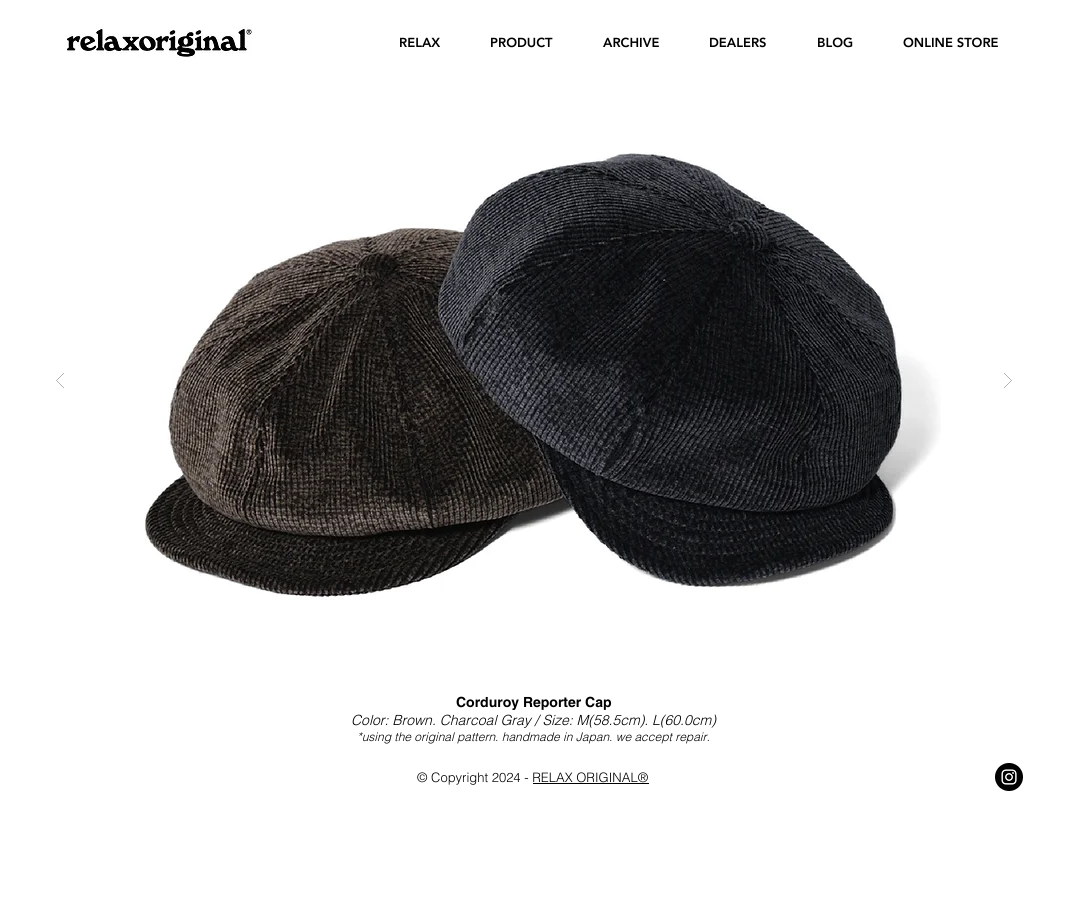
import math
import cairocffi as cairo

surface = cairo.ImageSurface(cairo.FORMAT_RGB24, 1067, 912)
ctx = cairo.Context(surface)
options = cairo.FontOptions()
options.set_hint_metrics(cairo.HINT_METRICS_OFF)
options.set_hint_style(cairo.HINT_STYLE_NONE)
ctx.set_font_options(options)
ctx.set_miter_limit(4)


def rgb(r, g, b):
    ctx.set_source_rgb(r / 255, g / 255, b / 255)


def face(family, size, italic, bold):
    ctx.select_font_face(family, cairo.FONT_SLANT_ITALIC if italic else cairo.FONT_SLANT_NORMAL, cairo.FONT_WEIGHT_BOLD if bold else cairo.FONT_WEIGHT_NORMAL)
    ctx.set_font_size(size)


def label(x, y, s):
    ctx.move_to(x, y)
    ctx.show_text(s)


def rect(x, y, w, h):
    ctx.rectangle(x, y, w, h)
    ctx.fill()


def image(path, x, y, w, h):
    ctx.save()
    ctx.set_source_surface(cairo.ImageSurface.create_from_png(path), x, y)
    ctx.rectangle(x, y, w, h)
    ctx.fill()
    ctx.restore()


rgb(255, 255, 255)
ctx.paint()
image('image0.png', 64, 27, 188, 31)
face('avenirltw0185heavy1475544 Black', 13, 0, 0)
rgb(0, 0, 0)
label(399, 47, 'RELAX')
label(490, 47, 'PRODUCT')
label(603, 47, 'ARCHIVE')
label(709, 47, 'DEALERS')
label(817, 47, 'BLOG')
label(903, 47, 'ONLINE STORE')
image('image1.png', 144, 152, 797, 448)
image('image2.png', 56, 373, 8, 15)
image('image3.png', 1004, 373, 8, 15)
face('helvetica', 14, 0, 1)
label(456, 707, 'Corduroy Reporter Cap')
face('helvetica Light', 14, 1, 0)
label(351, 725, 'Color: Brown. Charcoal Gray / Size: M(58.5cm). L(60.0cm)')
face('helvetica Light', 12, 1, 0)
label(357, 741, '*using the original pattern. handmade in Japan. we accept repair.')
face('helvetica Light', 13, 0, 0)
label(417, 782, '© Copyright 2024 - RELAX ORIGINAL®')
rect(533, 783, 116, 1)
image('image4.png', 995, 763, 28, 28)
surface.write_to_png('render.png')
